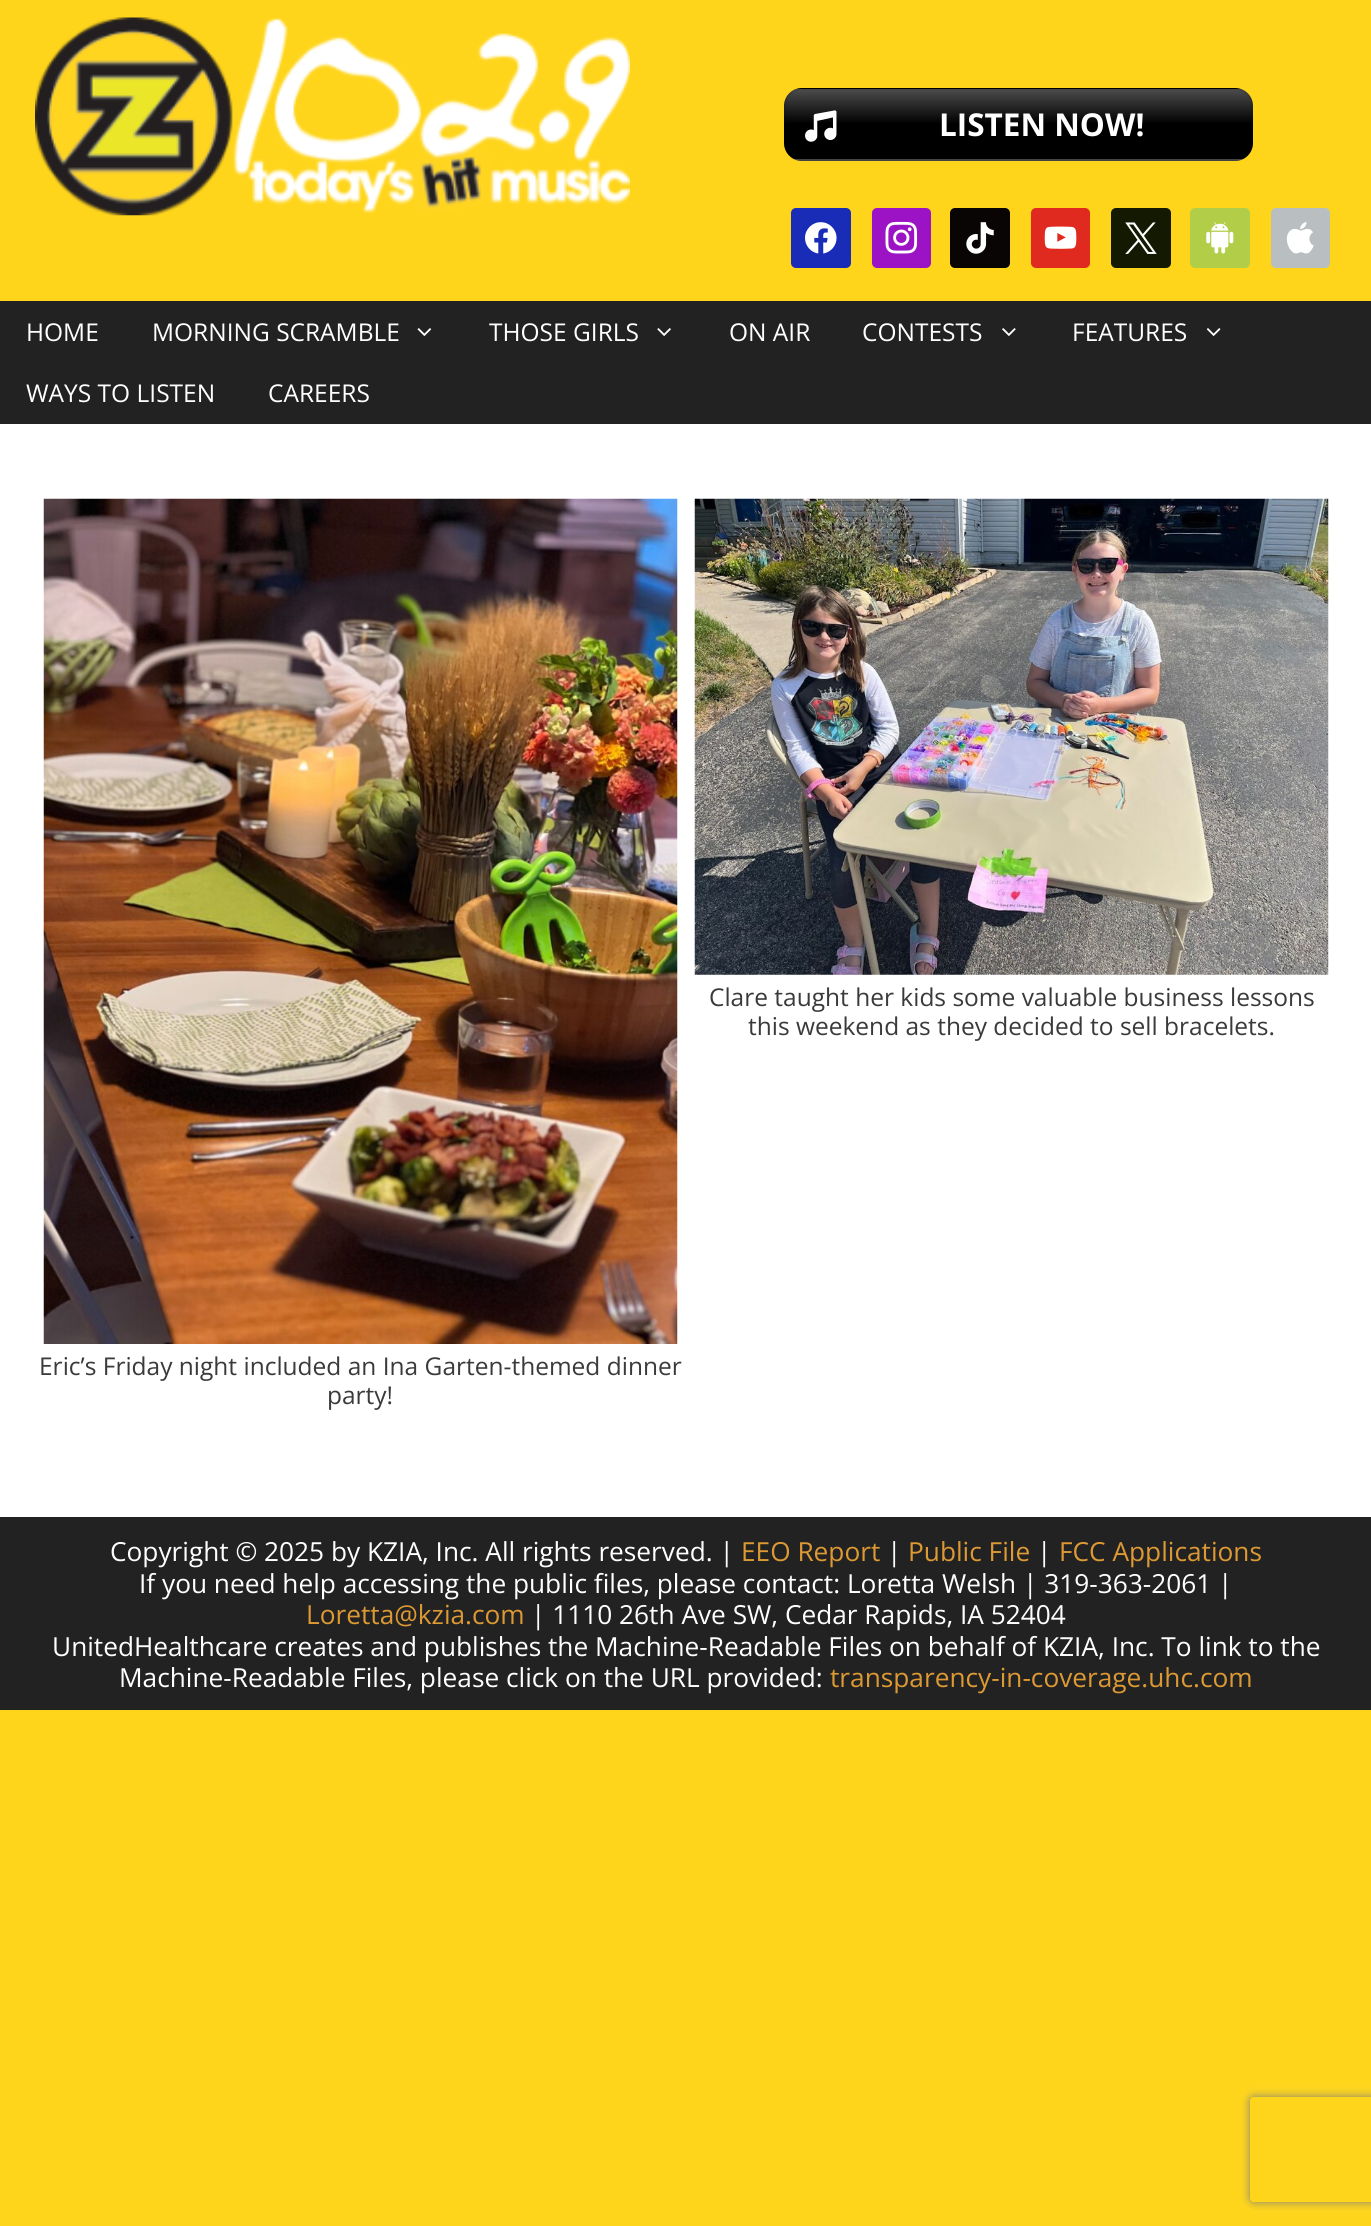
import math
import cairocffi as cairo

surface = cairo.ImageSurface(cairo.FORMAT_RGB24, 1371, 2226)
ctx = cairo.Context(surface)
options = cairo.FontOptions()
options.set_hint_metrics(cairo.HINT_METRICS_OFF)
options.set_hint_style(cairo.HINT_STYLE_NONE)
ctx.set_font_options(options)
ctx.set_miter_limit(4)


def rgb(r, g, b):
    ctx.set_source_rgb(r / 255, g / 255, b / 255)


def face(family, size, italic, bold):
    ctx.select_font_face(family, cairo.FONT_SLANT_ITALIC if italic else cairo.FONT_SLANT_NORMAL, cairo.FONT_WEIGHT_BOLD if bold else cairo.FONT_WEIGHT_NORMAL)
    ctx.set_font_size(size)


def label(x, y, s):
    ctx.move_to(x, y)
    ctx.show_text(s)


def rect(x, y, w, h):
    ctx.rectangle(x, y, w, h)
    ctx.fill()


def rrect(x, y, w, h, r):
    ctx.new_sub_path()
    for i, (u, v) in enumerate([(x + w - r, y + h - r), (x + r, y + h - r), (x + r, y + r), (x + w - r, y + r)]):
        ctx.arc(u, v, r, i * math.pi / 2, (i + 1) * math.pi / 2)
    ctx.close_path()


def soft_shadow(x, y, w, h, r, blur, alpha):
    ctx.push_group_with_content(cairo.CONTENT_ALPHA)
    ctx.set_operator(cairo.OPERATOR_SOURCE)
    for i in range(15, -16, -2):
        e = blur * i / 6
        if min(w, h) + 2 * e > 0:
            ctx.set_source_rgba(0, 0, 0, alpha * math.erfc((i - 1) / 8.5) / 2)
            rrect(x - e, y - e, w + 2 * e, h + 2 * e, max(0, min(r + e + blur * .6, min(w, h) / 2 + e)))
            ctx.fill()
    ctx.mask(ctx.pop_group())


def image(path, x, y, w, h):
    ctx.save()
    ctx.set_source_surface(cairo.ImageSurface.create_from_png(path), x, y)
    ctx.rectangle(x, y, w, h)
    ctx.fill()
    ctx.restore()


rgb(255, 213, 28)
ctx.paint()
image('image0.png', 35, 17, 595, 199)
rgb(0, 0, 0)
rrect(784, 88, 469, 73, 18)
ctx.fill()
gradient = cairo.LinearGradient(1019, 19, 1019, 89)
gradient.add_color_stop_rgba(0, 1, 1, 1, 0.3)
gradient.add_color_stop_rgba(0.5, 1, 1, 1, 0)
gradient.add_color_stop_rgba(0.5, 0, 0, 0, 0)
gradient.add_color_stop_rgba(0.51, 0, 0, 0, 0.12)
gradient.add_color_stop_rgba(1, 0, 0, 0, 0.04)
ctx.set_source(gradient)
rect(798, 88, 441, 1)
ctx.save()
rrect(784, 88, 469, 73, 18)
ctx.clip()
gradient = cairo.LinearGradient(1019, 89, 1019, 159)
gradient.add_color_stop_rgba(0, 1, 1, 1, 0.3)
gradient.add_color_stop_rgba(0.5, 1, 1, 1, 0)
gradient.add_color_stop_rgba(0.5, 0, 0, 0, 0)
gradient.add_color_stop_rgba(0.51, 0, 0, 0, 0.12)
gradient.add_color_stop_rgba(1, 0, 0, 0, 0.04)
ctx.set_source(gradient)
rect(784, 89, 469, 70)
gradient = cairo.LinearGradient(1019, 159, 1019, 229)
gradient.add_color_stop_rgba(0, 1, 1, 1, 0.3)
gradient.add_color_stop_rgba(0.5, 1, 1, 1, 0)
gradient.add_color_stop_rgba(0.5, 0, 0, 0, 0)
gradient.add_color_stop_rgba(0.51, 0, 0, 0, 0.12)
gradient.add_color_stop_rgba(1, 0, 0, 0, 0.04)
ctx.set_source(gradient)
rect(794, 159, 449, 2)
ctx.restore()
rrect(785, 89, 467, 71, 17)
ctx.set_source_rgba(0, 0, 0, 0.1)
ctx.stroke()
image('image1.png', 805, 110, 32, 32)
face('Open Sans', 31.5, 0, 1)
rgb(255, 255, 255)
label(939, 136, 'LISTEN NOW!')
rgb(25, 44, 183)
rrect(791, 208, 60, 60, 5)
ctx.fill()
image('image2.png', 805, 222, 32, 32)
rgb(155, 19, 196)
rrect(872, 208, 59, 60, 5)
ctx.fill()
image('image3.png', 885, 221, 33, 33)
rgb(10, 5, 5)
rrect(950, 208, 60, 60, 5)
ctx.fill()
image('image4.png', 966, 222, 28, 32)
rgb(224, 42, 32)
rrect(1031, 208, 59, 60, 5)
ctx.fill()
image('image5.png', 1044, 226, 33, 23)
rgb(20, 25, 2)
rrect(1111, 208, 60, 60, 5)
ctx.fill()
image('image6.png', 1125, 222, 32, 32)
rgb(178, 206, 73)
rrect(1190, 208, 60, 60, 5)
ctx.fill()
image('image7.png', 1206, 222, 28, 32)
rgb(185, 191, 193)
rrect(1271, 208, 59, 60, 5)
ctx.fill()
image('image8.png', 1286, 222, 28, 32)
rgb(34, 34, 34)
rect(0, 301, 1371, 123)
face('Open Sans', 24.5, 0, 0)
rgb(255, 255, 255)
label(26, 341, 'HOME')
label(152, 341, 'MORNING SCRAMBLE')
image('image9.png', 417, 328, 15, 8)
label(489, 341, 'THOSE GIRLS')
image('image10.png', 657, 328, 14, 8)
label(729, 341, 'ON AIR')
label(862, 341, 'CONTESTS')
image('image11.png', 1002, 328, 14, 8)
label(1072, 341, 'FEATURES')
image('image12.png', 1206, 328, 15, 8)
label(26, 402, 'WAYS TO LISTEN')
label(268, 402, 'CAREERS')
rect(0, 424, 1371, 1093)
image('image13.png', 694, 498, 635, 477)
rgb(58, 58, 58)
label(709, 1006, 'Clare taught her kids some valuable business lessons')
label(748, 1035, 'this weekend as they decided to sell bracelets.')
image('image14.png', 43, 498, 635, 846)
label(39, 1375, 'Eric’s Friday night included an Ina Garten-themed dinner')
label(327, 1404, 'party!')
rgb(34, 34, 34)
rect(0, 1517, 1371, 193)
face('Open Sans', 26.25, 0, 0)
rgb(255, 255, 255)
label(110, 1561, 'Copyright © 2025 by KZIA, Inc. All rights reserved. |')
rgb(221, 153, 51)
label(741, 1561, 'EEO Report')
rgb(255, 255, 255)
label(887, 1561, '|')
rgb(221, 153, 51)
label(908, 1561, 'Public File')
rgb(255, 255, 255)
label(1037, 1561, '|')
rgb(221, 153, 51)
label(1059, 1561, 'FCC Applications')
rgb(255, 255, 255)
label(139, 1593, 'If you need help accessing the public files, please contact: Loretta Welsh | 319-363-2061 |')
rgb(221, 153, 51)
label(306, 1624, 'Loretta@kzia.com')
rgb(255, 255, 255)
label(531, 1624, '| 1110 26th Ave SW, Cedar Rapids, IA 52404')
label(52, 1656, 'UnitedHealthcare creates and publishes the Machine-Readable Files on behalf of KZIA, Inc. To link to the')
label(119, 1687, 'Machine-Readable Files, please click on the URL provided:')
rgb(221, 153, 51)
label(830, 1687, 'transparency-in-coverage.uhc.com')
ctx.save()
ctx.set_fill_rule(cairo.FILL_RULE_EVEN_ODD)
ctx.new_path()
ctx.move_to(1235, 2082)
ctx.line_to(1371, 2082)
ctx.line_to(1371, 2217)
ctx.line_to(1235, 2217)
ctx.close_path()
ctx.move_to(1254, 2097)
ctx.line_to(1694, 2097)
ctx.curve_to(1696, 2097, 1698, 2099, 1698, 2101)
ctx.line_to(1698, 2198)
ctx.curve_to(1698, 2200, 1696, 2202, 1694, 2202)
ctx.line_to(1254, 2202)
ctx.curve_to(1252, 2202, 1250, 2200, 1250, 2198)
ctx.line_to(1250, 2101)
ctx.curve_to(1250, 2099, 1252, 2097, 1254, 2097)
ctx.close_path()
ctx.clip()
rgb(128, 128, 128)
soft_shadow(1250, 2097, 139, 105, 4, 4.5, 1)
ctx.restore()
surface.write_to_png('render.png')
